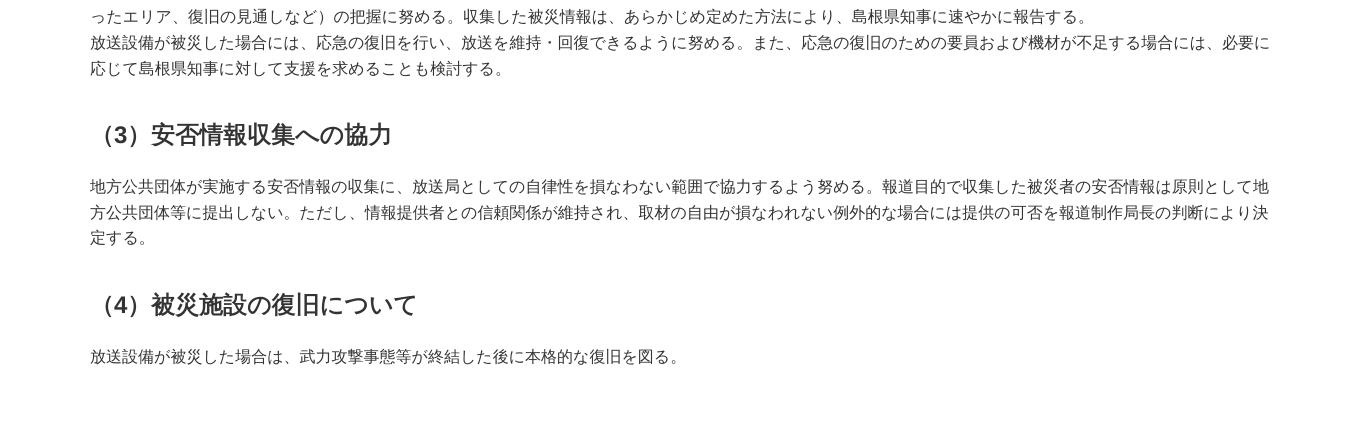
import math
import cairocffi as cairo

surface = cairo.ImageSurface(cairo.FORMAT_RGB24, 1372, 428)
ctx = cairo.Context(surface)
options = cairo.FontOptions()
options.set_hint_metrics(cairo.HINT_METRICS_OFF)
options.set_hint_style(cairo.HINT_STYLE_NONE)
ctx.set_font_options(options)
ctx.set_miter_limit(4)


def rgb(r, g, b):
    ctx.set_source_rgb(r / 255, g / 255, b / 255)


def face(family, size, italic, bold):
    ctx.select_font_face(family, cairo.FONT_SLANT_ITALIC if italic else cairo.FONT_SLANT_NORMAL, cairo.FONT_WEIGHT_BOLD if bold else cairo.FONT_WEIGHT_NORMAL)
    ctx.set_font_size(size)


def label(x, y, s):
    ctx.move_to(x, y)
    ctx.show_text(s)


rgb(255, 255, 255)
ctx.paint()
face('WenQuanYi Zen Hei Medium', 16, 0, 0)
rgb(51, 51, 51)
label(90, 22, 'ったエリア、復旧の見通しなど）の把握に努める。収集した被災情報は、あらかじめ定めた方法により、島根県知事に速やかに報告する。')
label(90, 48, '放送設備が被災した場合には、応急の復旧を行い、放送を維持・回復できるように努める。また、応急の復旧のための要員および機材が不足する場合には、必要に')
label(90, 74, '応じて島根県知事に対して支援を求めることも検討する。')
face('WenQuanYi Zen Hei', 24, 0, 1)
label(90, 143, '（')
face('Liberation Sans', 24, 0, 1)
label(114, 143, '3')
face('WenQuanYi Zen Hei', 24, 0, 1)
label(127, 143, '）安否情報収集への協力')
face('WenQuanYi Zen Hei Medium', 16, 0, 0)
label(90, 192, '地方公共団体が実施する安否情報の収集に、放送局としての自律性を損なわない範囲で協力するよう努める。報道目的で収集した被災者の安否情報は原則として地')
label(90, 218, '方公共団体等に提出しない。ただし、情報提供者との信頼関係が維持され、取材の自由が損なわれない例外的な場合には提供の可否を報道制作局長の判断により決')
label(90, 243, '定する。')
face('WenQuanYi Zen Hei', 24, 0, 1)
label(90, 313, '（')
face('Liberation Sans', 24, 0, 1)
label(114, 313, '4')
face('WenQuanYi Zen Hei', 24, 0, 1)
label(127, 313, '）被災施設の復旧について')
face('WenQuanYi Zen Hei Medium', 16, 0, 0)
label(90, 362, '放送設備が被災した場合は、武力攻撃事態等が終結した後に本格的な復旧を図る。')
surface.write_to_png('render.png')
